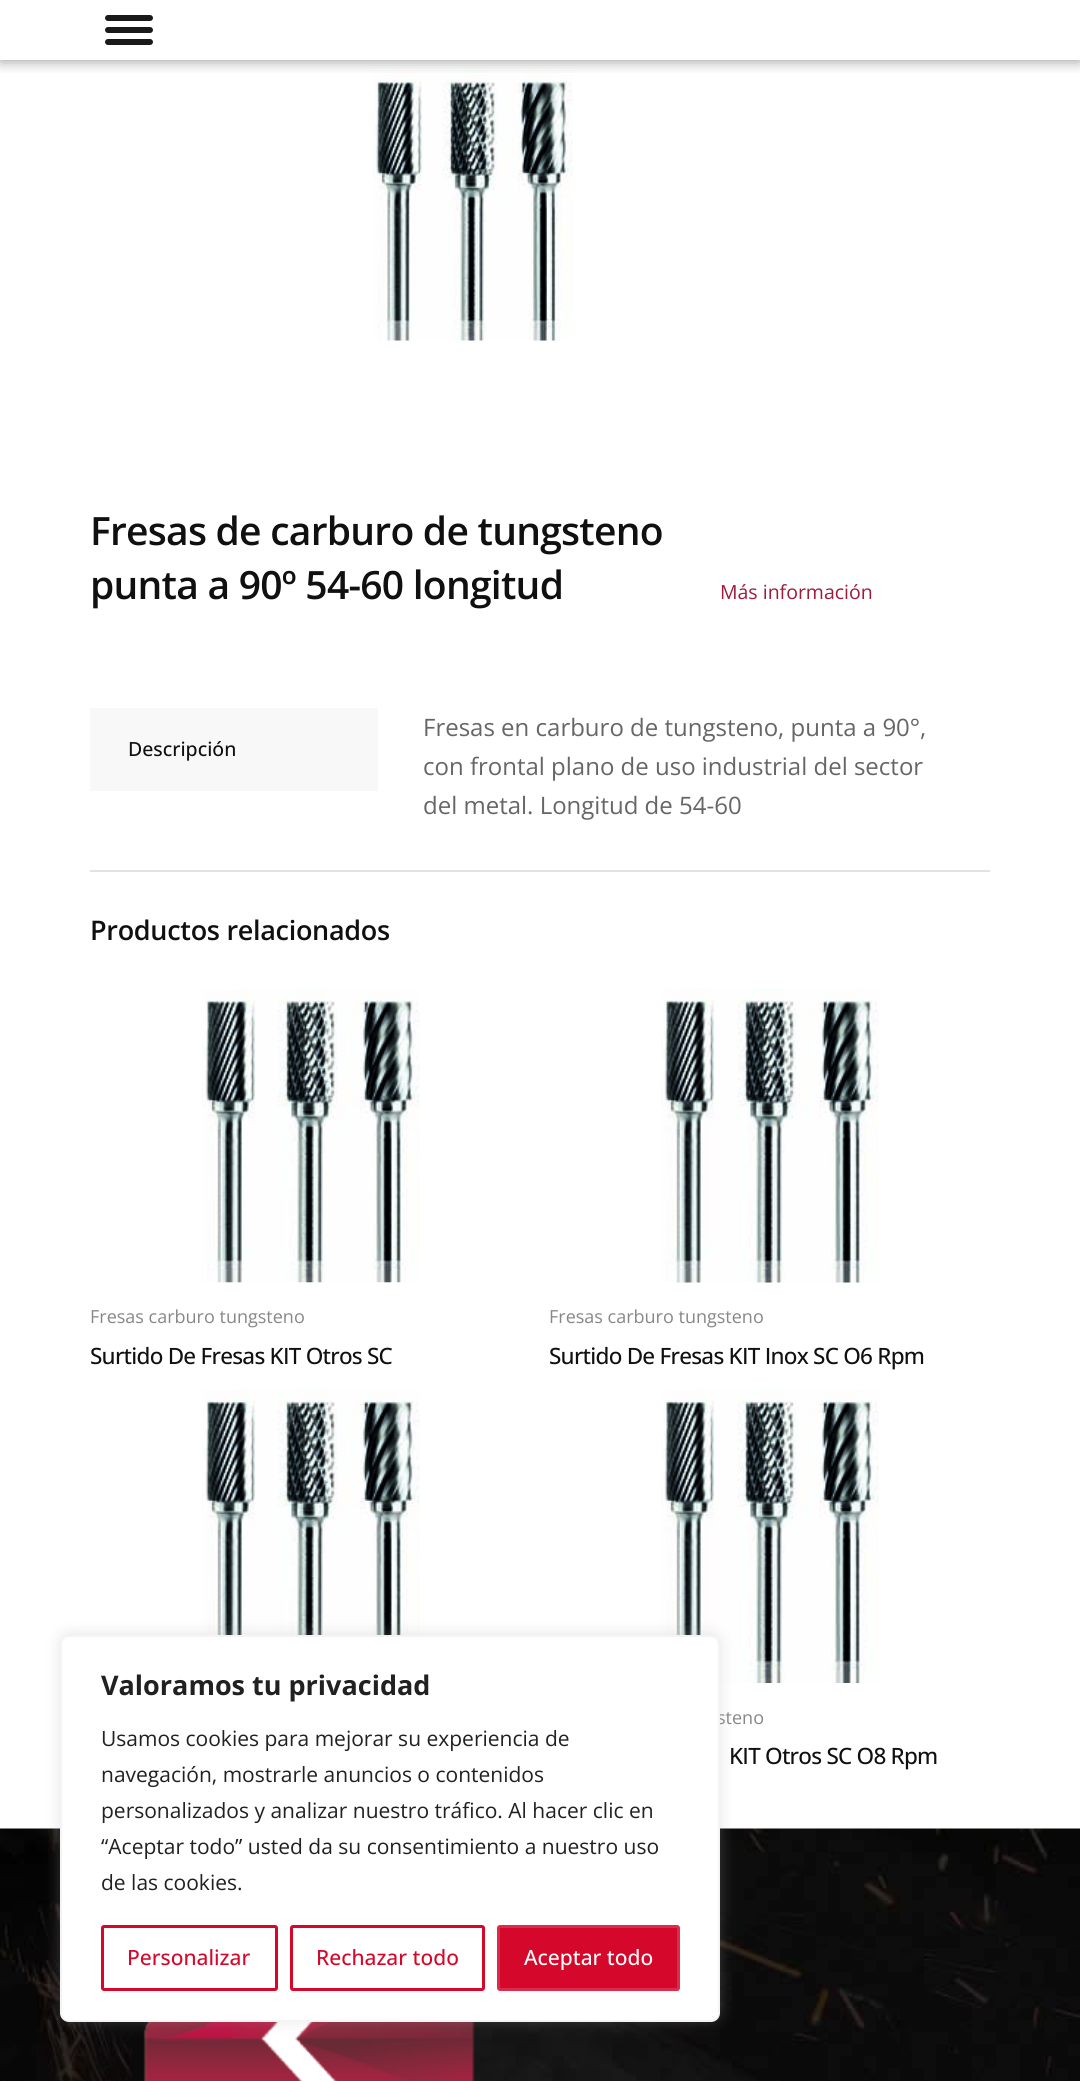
import math
import cairocffi as cairo

surface = cairo.ImageSurface(cairo.FORMAT_RGB24, 1080, 2081)
ctx = cairo.Context(surface)
options = cairo.FontOptions()
options.set_hint_metrics(cairo.HINT_METRICS_OFF)
options.set_hint_style(cairo.HINT_STYLE_NONE)
ctx.set_font_options(options)
ctx.set_miter_limit(4)


def rgb(r, g, b):
    ctx.set_source_rgb(r / 255, g / 255, b / 255)


def face(family, size, italic, bold):
    ctx.select_font_face(family, cairo.FONT_SLANT_ITALIC if italic else cairo.FONT_SLANT_NORMAL, cairo.FONT_WEIGHT_BOLD if bold else cairo.FONT_WEIGHT_NORMAL)
    ctx.set_font_size(size)


def label(x, y, s):
    ctx.move_to(x, y)
    ctx.show_text(s)


def tracked(x, y, s, letter, word):
    ctx.move_to(x, y)
    for ch in s:
        ctx.show_text(ch)
        ctx.rel_move_to(letter + word * (ch == ' '), 0)


def rect(x, y, w, h):
    ctx.rectangle(x, y, w, h)
    ctx.fill()


def rrect(x, y, w, h, r):
    ctx.new_sub_path()
    for i, (u, v) in enumerate([(x + w - r, y + h - r), (x + r, y + h - r), (x + r, y + r), (x + w - r, y + r)]):
        ctx.arc(u, v, r, i * math.pi / 2, (i + 1) * math.pi / 2)
    ctx.close_path()


def soft_shadow(x, y, w, h, r, blur, alpha):
    ctx.push_group_with_content(cairo.CONTENT_ALPHA)
    ctx.set_operator(cairo.OPERATOR_SOURCE)
    for i in range(15, -16, -2):
        e = blur * i / 6
        if min(w, h) + 2 * e > 0:
            ctx.set_source_rgba(0, 0, 0, alpha * math.erfc((i - 1) / 8.5) / 2)
            rrect(x - e, y - e, w + 2 * e, h + 2 * e, max(0, min(r + e + blur * .6, min(w, h) / 2 + e)))
            ctx.fill()
    ctx.mask(ctx.pop_group())


def image(path, x, y, w, h):
    ctx.save()
    ctx.set_source_surface(cairo.ImageSurface.create_from_png(path), x, y)
    ctx.rectangle(x, y, w, h)
    ctx.fill()
    ctx.restore()


rgb(255, 255, 255)
ctx.paint()
image('image0.png', 373, 70, 200, 271)
ctx.save()
ctx.rectangle(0, 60, 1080, 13)
ctx.clip()
rgb(0, 0, 0)
soft_shadow(0, 0, 1080, 60, 0, 7.5, 0.45)
ctx.restore()
rgb(26, 26, 26)
rrect(105, 15, 48, 6, 3)
ctx.fill()
rrect(105, 27, 48, 6, 3)
ctx.fill()
rrect(105, 39, 48, 6, 3)
ctx.fill()
face('Open Sans SemiBold', 39, 0, 0)
rgb(16, 16, 16)
tracked(90, 545, 'Fresas de carburo de tungsteno', -0.75, 0)
tracked(90, 599, 'punta a 90º 54-60 longitud', -0.75, 0)
face('Open Sans', 19.5, 0, 0)
rgb(159, 27, 60)
label(720, 599, 'Más información')
rgb(248, 248, 248)
rect(90, 708, 288, 83)
face('Open Sans Medium', 19.5, 0, 0)
rgb(16, 16, 16)
label(128, 756, 'Descripción')
face('Open Sans', 24, 0, 0)
rgb(102, 102, 102)
label(423, 736, 'Fresas en carburo de tungsteno, punta a 90°,')
label(423, 775, 'con frontal plano de uso industrial del sector')
label(423, 814, 'del metal. Longitud de 54-60')
rgb(226, 226, 226)
rect(90, 870, 900, 2)
face('Open Sans SemiBold', 27, 0, 0)
rgb(16, 16, 16)
tracked(90, 940, 'Productos relacionados', -0.3, 0)
image('image1.png', 202, 989, 218, 294)
face('Open Sans', 18, 0, 0)
rgb(136, 135, 135)
label(90, 1323, 'Fresas carburo tungsteno')
face('Open Sans Medium', 22.5, 0, 0)
rgb(16, 16, 16)
tracked(90, 1364, 'Surtido De Fresas KIT Otros SC', -0.75, 0)
image('image2.png', 661, 988, 218, 295)
face('Open Sans', 18, 0, 0)
rgb(136, 135, 135)
label(549, 1323, 'Fresas carburo tungsteno')
face('Open Sans Medium', 22.5, 0, 0)
rgb(16, 16, 16)
tracked(549, 1364, 'Surtido De Fresas KIT Inox SC O6 Rpm', -0.75, 0)
image('image3.png', 202, 1389, 218, 246)
image('image4.png', 661, 1389, 218, 294)
face('Open Sans', 18, 0, 0)
rgb(136, 135, 135)
label(717, 1724, 'steno')
face('Open Sans Medium', 22.5, 0, 0)
rgb(16, 16, 16)
tracked(729, 1764, 'KIT Otros SC O8 Rpm', -0.75, 0)
image('image5.png', 0, 1828, 1080, 253)
image('image6.png', 143, 2022, 332, 59)
rgb(172, 171, 171)
soft_shadow(60, 1634, 660, 387, 9, 7.5, 0.3)
rgb(255, 255, 255)
rrect(61, 1636, 658, 385, 8)
ctx.fill_preserve()
rgb(244, 244, 244)
ctx.stroke()
face('Open Sans', 27, 0, 1)
rgb(33, 33, 33)
label(101, 1695, 'Valoramos tu privacidad')
face('Open Sans', 21, 0, 0)
label(101, 1746, 'Usamos cookies para mejorar su experiencia de')
label(101, 1782, 'navegación, mostrarle anuncios o contenidos')
label(101, 1818, 'personalizados y analizar nuestro tráfico. Al hacer clic en')
label(101, 1854, '“Aceptar todo” usted da su consentimiento a nuestro uso')
label(101, 1890, 'de las cookies.')
rrect(102.5, 1926.5, 174, 63, 1.5)
rgb(213, 7, 43)
ctx.set_line_width(3)
ctx.stroke()
face('Open Sans Medium', 21, 0, 0)
label(127, 1965, 'Personalizar')
rrect(291.5, 1926.5, 192, 63, 1.5)
ctx.stroke()
label(316, 1965, 'Rechazar todo')
rrect(498.5, 1926.5, 180, 63, 1.5)
ctx.fill_preserve()
rgb(219, 45, 75)
ctx.stroke()
rgb(255, 255, 255)
label(524, 1965, 'Aceptar todo')
surface.write_to_png('render.png')
